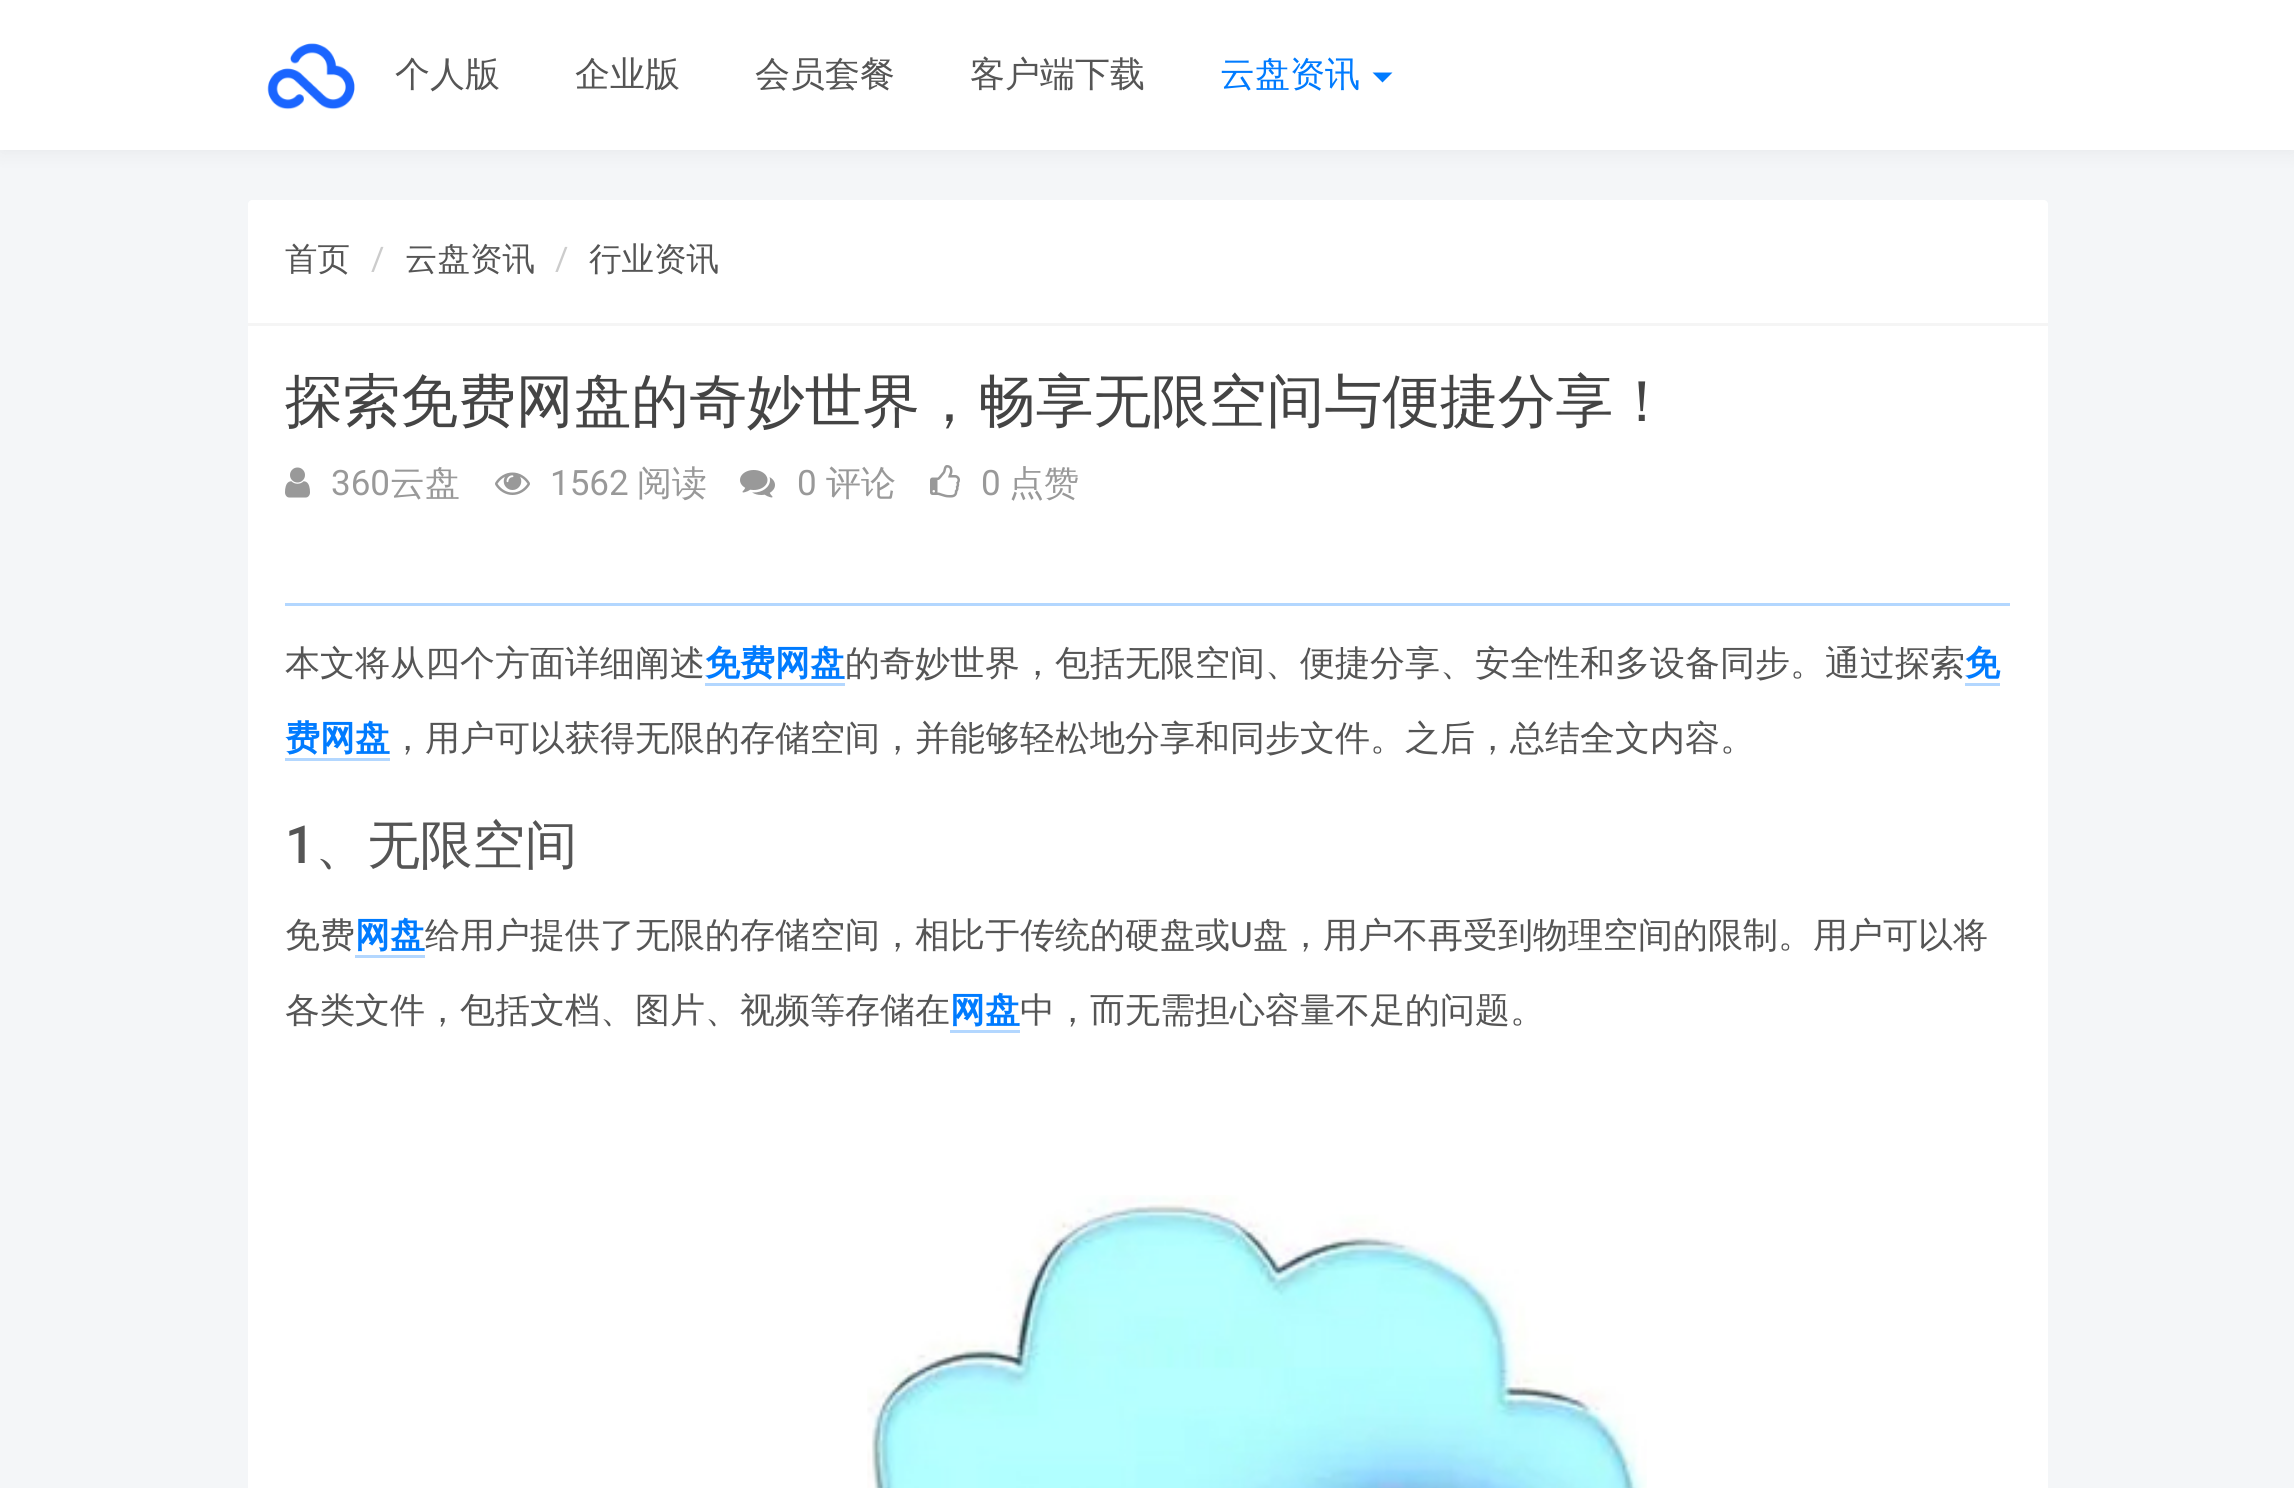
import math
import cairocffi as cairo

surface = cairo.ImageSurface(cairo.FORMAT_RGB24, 2294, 1488)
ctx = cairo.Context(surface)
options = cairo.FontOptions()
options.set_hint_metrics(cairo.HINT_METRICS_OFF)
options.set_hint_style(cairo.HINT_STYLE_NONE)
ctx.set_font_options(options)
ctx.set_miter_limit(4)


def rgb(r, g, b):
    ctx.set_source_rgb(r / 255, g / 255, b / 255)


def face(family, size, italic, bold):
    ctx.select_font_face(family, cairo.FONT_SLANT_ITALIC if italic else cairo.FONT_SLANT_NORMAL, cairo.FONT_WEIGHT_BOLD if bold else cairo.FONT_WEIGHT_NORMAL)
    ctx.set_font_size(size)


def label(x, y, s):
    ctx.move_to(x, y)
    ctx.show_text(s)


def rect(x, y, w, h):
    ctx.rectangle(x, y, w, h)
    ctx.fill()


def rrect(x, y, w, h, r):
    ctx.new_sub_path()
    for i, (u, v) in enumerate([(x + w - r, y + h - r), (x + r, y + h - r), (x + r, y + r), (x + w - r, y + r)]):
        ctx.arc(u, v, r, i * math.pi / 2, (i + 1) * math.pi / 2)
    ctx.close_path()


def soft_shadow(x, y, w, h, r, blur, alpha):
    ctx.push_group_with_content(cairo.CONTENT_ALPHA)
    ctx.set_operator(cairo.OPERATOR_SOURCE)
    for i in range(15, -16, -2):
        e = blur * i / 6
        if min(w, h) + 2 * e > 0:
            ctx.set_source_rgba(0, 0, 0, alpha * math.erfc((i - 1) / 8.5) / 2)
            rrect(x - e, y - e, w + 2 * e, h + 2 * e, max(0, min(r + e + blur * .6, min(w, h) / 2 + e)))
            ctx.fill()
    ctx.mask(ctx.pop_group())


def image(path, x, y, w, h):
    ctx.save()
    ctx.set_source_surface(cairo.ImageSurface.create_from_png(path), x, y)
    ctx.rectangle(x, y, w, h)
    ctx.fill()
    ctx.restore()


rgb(244, 246, 248)
ctx.paint()
rgb(0, 0, 0)
soft_shadow(0, 3, 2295, 150, 0, 10, 0.05)
rgb(255, 255, 255)
rect(0, 0, 2294, 150)
image('image0.png', 267, 43, 88, 67)
face('WenQuanYi Zen Hei Medium', 35, 0, 0)
rgb(85, 85, 85)
label(395, 86, '个人版')
label(575, 86, '企业版')
label(755, 86, '会员套餐')
label(970, 86, '客户端下载')
rgb(0, 123, 255)
label(1220, 86, '云盘资讯')
ctx.new_path()
ctx.move_to(1372.5, 72.5)
ctx.line_to(1392.5, 72.5)
ctx.line_to(1382.5, 82.5)
ctx.close_path()
ctx.fill()
rgb(255, 255, 255)
rrect(248, 200, 1800, 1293, 5)
ctx.fill()
ctx.new_path()
ctx.move_to(253, 200)
ctx.line_to(2043, 200)
ctx.curve_to(2046, 200, 2048, 202, 2048, 205)
ctx.line_to(2048, 325)
ctx.line_to(248, 325)
ctx.line_to(248, 205)
ctx.curve_to(248, 202, 250, 200, 253, 200)
ctx.close_path()
ctx.fill()
rgb(245, 245, 245)
rect(248, 323, 1800, 3)
face('WenQuanYi Zen Hei Medium', 32.5, 0, 0)
rgb(85, 85, 85)
label(285, 270, '首页')
face('Roboto', 32.5, 0, 0)
rgb(204, 204, 204)
label(371, 270, '/')
face('WenQuanYi Zen Hei Medium', 32.5, 0, 0)
rgb(85, 85, 85)
label(405, 270, '云盘资讯')
face('Roboto', 32.5, 0, 0)
rgb(204, 204, 204)
label(555, 270, '/')
face('WenQuanYi Zen Hei Medium', 32.5, 0, 0)
rgb(85, 85, 85)
label(589, 270, '行业资讯')
face('WenQuanYi Zen Hei Medium', 57.75, 0, 0)
rgb(68, 68, 68)
label(285, 421, '探索免费网盘的奇妙世界，畅享无限空间与便捷分享！')
image('image1.png', 285, 467, 25, 31)
face('Roboto', 35, 0, 0)
rgb(153, 153, 153)
label(331, 495, '360')
face('WenQuanYi Zen Hei Medium', 35, 0, 0)
label(390, 495, '云盘')
image('image2.png', 495, 472, 35, 23)
face('Roboto', 35, 0, 0)
label(550, 495, '1562')
face('WenQuanYi Zen Hei Medium', 35, 0, 0)
label(637, 495, '阅读')
image('image3.png', 740, 470, 35, 28)
face('Roboto', 35, 0, 0)
label(797, 495, '0')
face('WenQuanYi Zen Hei Medium', 35, 0, 0)
label(826, 495, '评论')
image('image4.png', 930, 465, 30, 33)
face('Roboto', 35, 0, 0)
label(981, 495, '0')
face('WenQuanYi Zen Hei Medium', 35, 0, 0)
label(1009, 495, '点赞')
rgb(179, 215, 255)
rect(285, 603, 1725, 3)
rgb(85, 85, 85)
label(285, 675, '本文将从四个方面详细阐述')
face('WenQuanYi Zen Hei', 35, 0, 1)
rgb(0, 123, 255)
label(705, 675, '免费网盘')
rgb(179, 215, 255)
rect(705, 683, 140, 3)
face('WenQuanYi Zen Hei Medium', 35, 0, 0)
rgb(85, 85, 85)
label(845, 675, '的奇妙世界，包括无限空间、便捷分享、安全性和多设备同步。通过探索')
face('WenQuanYi Zen Hei', 35, 0, 1)
rgb(0, 123, 255)
label(1965, 675, '免')
rgb(179, 215, 255)
rect(1965, 683, 35, 3)
rgb(0, 123, 255)
label(285, 750, '费网盘')
rgb(179, 215, 255)
rect(285, 758, 105, 3)
face('WenQuanYi Zen Hei Medium', 35, 0, 0)
rgb(85, 85, 85)
label(390, 750, '，用户可以获得无限的存储空间，并能够轻松地分享和同步文件。之后，总结全文内容。')
face('Roboto Medium', 52.5, 0, 0)
label(285, 863, '1')
face('WenQuanYi Zen Hei Medium', 52.5, 0, 0)
label(315, 863, '、无限空间')
face('WenQuanYi Zen Hei Medium', 35, 0, 0)
label(285, 947, '免费')
face('WenQuanYi Zen Hei', 35, 0, 1)
rgb(0, 123, 255)
label(355, 947, '网盘')
rgb(179, 215, 255)
rect(355, 955, 70, 3)
face('WenQuanYi Zen Hei Medium', 35, 0, 0)
rgb(85, 85, 85)
label(425, 947, '给用户提供了无限的存储空间，相比于传统的硬盘或')
face('Roboto', 35, 0, 0)
label(1230, 947, 'U')
face('WenQuanYi Zen Hei Medium', 35, 0, 0)
label(1253, 947, '盘，用户不再受到物理空间的限制。用户可以将')
label(285, 1022, '各类文件，包括文档、图片、视频等存储在')
face('WenQuanYi Zen Hei', 35, 0, 1)
rgb(0, 123, 255)
label(950, 1022, '网盘')
rgb(179, 215, 255)
rect(950, 1030, 70, 3)
face('WenQuanYi Zen Hei Medium', 35, 0, 0)
rgb(85, 85, 85)
label(1020, 1022, '中，而无需担心容量不足的问题。')
image('image5.png', 867, 1195, 780, 293)
surface.write_to_png('render.png')
